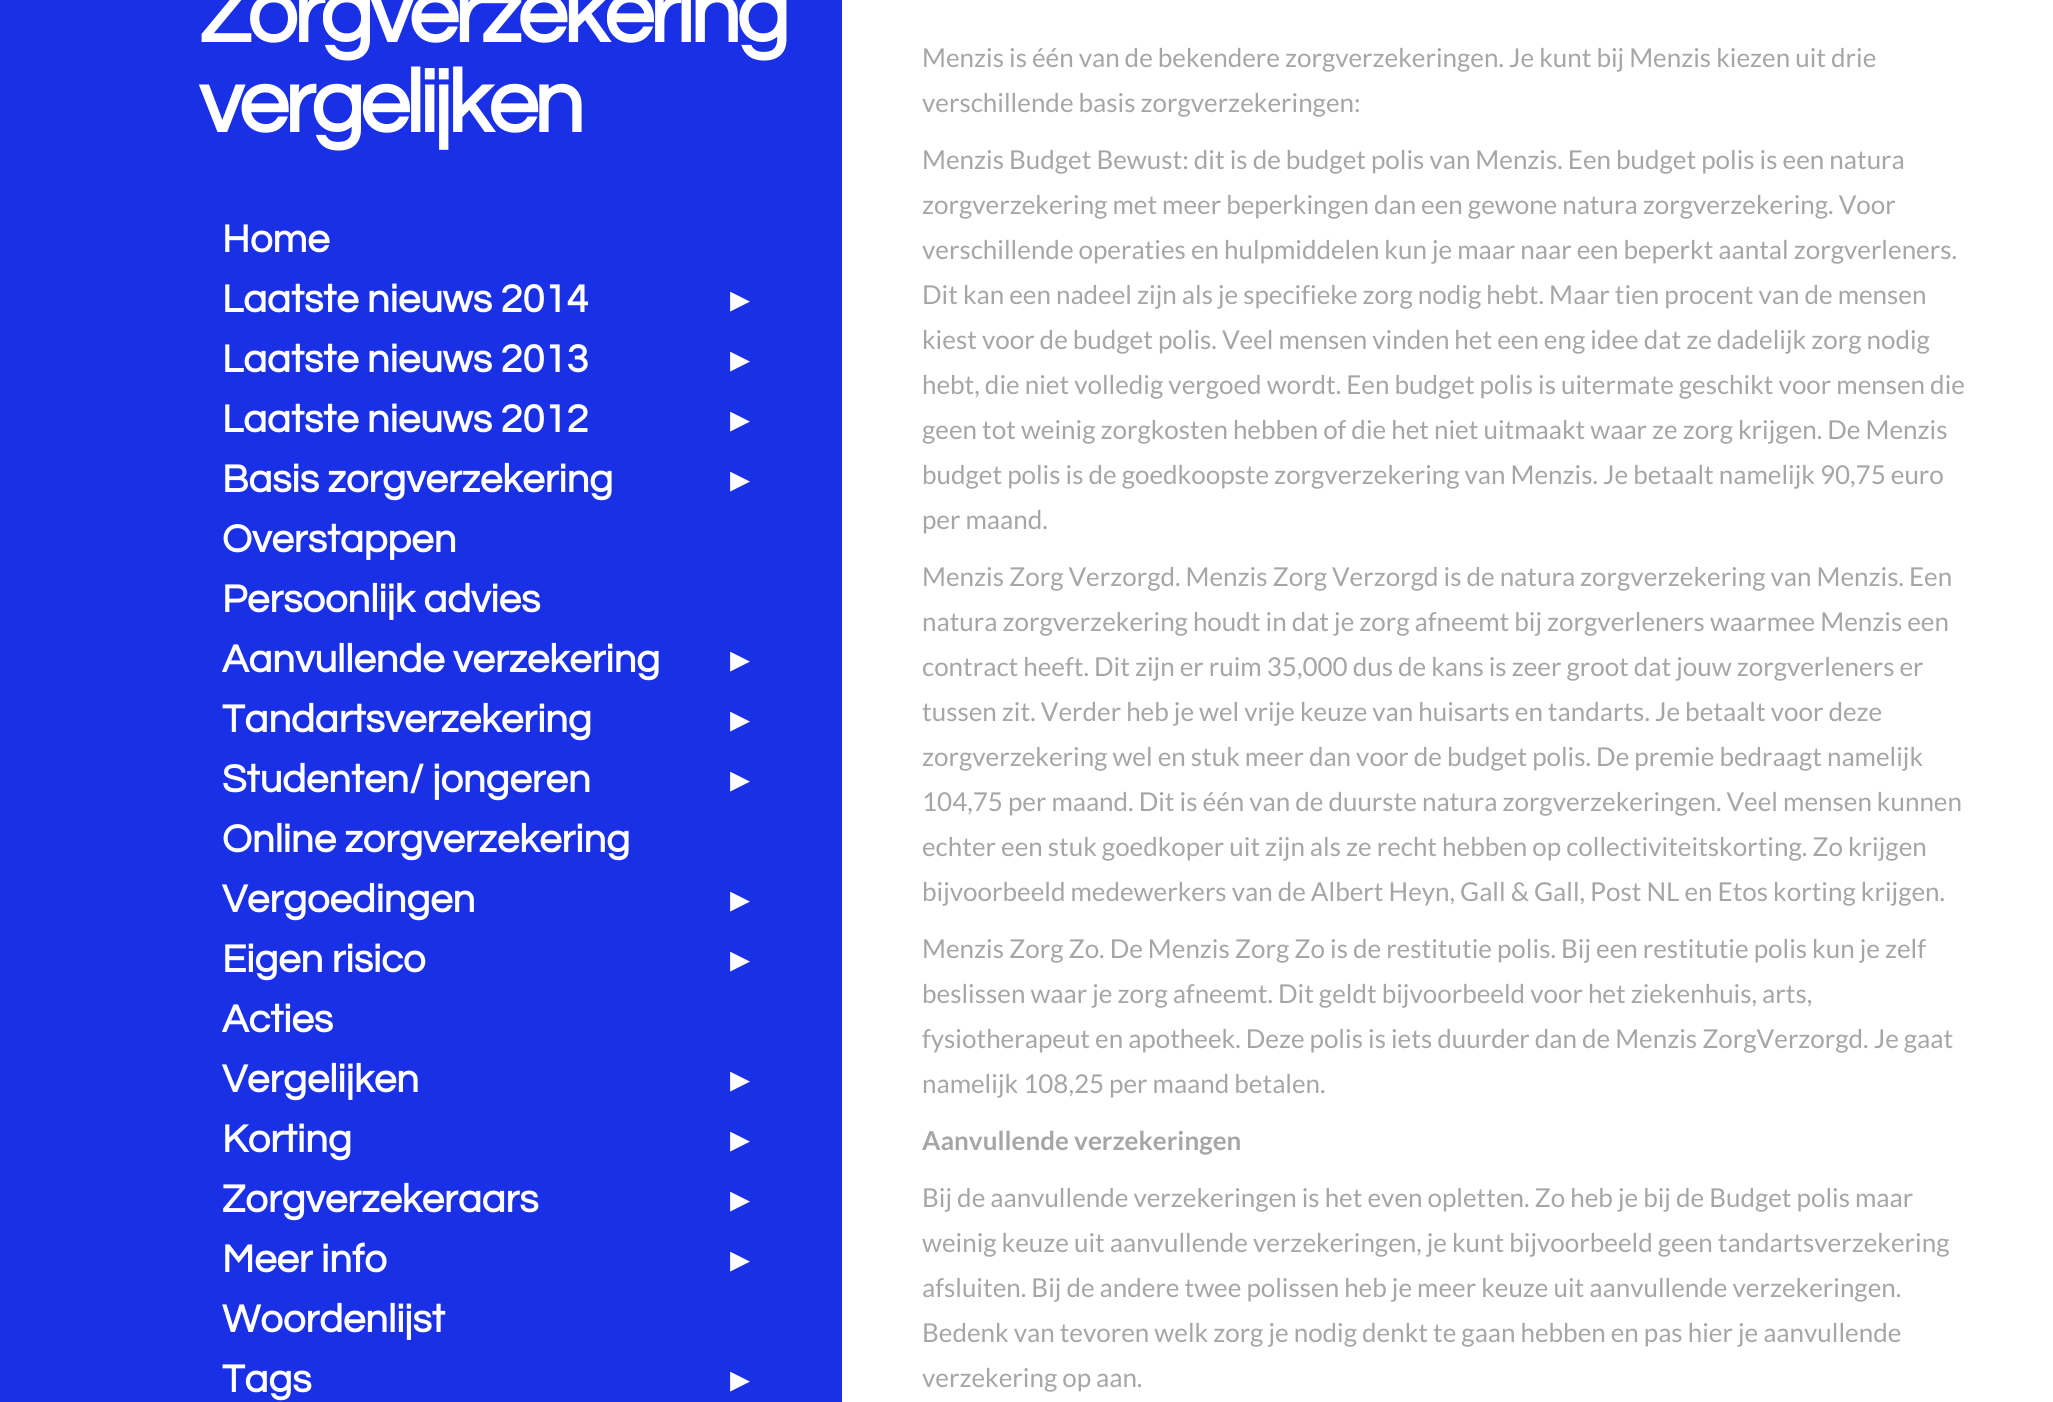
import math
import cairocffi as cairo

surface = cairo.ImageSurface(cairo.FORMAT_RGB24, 2053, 1402)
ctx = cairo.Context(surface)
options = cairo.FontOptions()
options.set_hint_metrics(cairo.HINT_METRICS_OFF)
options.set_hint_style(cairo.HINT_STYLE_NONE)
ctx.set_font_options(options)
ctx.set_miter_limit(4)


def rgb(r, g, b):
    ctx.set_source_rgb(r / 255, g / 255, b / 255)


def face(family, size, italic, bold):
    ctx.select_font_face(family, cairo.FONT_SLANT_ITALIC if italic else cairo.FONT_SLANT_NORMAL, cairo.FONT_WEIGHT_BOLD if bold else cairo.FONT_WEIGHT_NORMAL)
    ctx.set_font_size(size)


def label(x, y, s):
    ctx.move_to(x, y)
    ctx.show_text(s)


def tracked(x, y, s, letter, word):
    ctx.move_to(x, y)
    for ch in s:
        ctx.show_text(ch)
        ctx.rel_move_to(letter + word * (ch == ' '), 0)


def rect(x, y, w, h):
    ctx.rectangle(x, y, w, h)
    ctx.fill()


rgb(255, 255, 255)
ctx.paint()
rgb(25, 48, 230)
rect(0, 0, 842, 1402)
face('Questrial', 90, 0, 1)
rgb(255, 255, 255)
tracked(199, 42, 'Zorgverzekering', -4.5, 0)
tracked(199, 132, 'vergelijken', -4.5, 0)
face('Questrial', 40, 0, 1)
label(222, 252, 'Home')
label(222, 312, 'Laatste nieuws 2014')
face('DejaVu Sans', 40, 0, 0)
label(730, 312, '▸')
face('Questrial', 40, 0, 1)
label(222, 372, 'Laatste nieuws 2013')
face('DejaVu Sans', 40, 0, 0)
label(730, 372, '▸')
face('Questrial', 40, 0, 1)
label(222, 432, 'Laatste nieuws 2012')
face('DejaVu Sans', 40, 0, 0)
label(730, 432, '▸')
face('Questrial', 40, 0, 1)
label(222, 492, 'Basis zorgverzekering')
face('DejaVu Sans', 40, 0, 0)
label(730, 492, '▸')
face('Questrial', 40, 0, 1)
label(222, 552, 'Overstappen')
label(222, 612, 'Persoonlijk advies')
label(222, 672, 'Aanvullende verzekering')
face('DejaVu Sans', 40, 0, 0)
label(730, 672, '▸')
face('Questrial', 40, 0, 1)
label(222, 732, 'Tandartsverzekering')
face('DejaVu Sans', 40, 0, 0)
label(730, 732, '▸')
face('Questrial', 40, 0, 1)
label(222, 792, 'Studenten/ jongeren')
face('DejaVu Sans', 40, 0, 0)
label(730, 792, '▸')
face('Questrial', 40, 0, 1)
label(222, 852, 'Online zorgverzekering')
label(222, 912, 'Vergoedingen')
face('DejaVu Sans', 40, 0, 0)
label(730, 912, '▸')
face('Questrial', 40, 0, 1)
label(222, 972, 'Eigen risico')
face('DejaVu Sans', 40, 0, 0)
label(730, 972, '▸')
face('Questrial', 40, 0, 1)
label(222, 1032, 'Acties')
label(222, 1092, 'Vergelijken')
face('DejaVu Sans', 40, 0, 0)
label(730, 1092, '▸')
face('Questrial', 40, 0, 1)
label(222, 1152, 'Korting')
face('DejaVu Sans', 40, 0, 0)
label(730, 1152, '▸')
face('Questrial', 40, 0, 1)
label(222, 1212, 'Zorgverzekeraars')
face('DejaVu Sans', 40, 0, 0)
label(730, 1212, '▸')
face('Questrial', 40, 0, 1)
label(222, 1272, 'Meer info')
face('DejaVu Sans', 40, 0, 0)
label(730, 1272, '▸')
face('Questrial', 40, 0, 1)
label(222, 1332, 'Woordenlijst')
label(222, 1392, 'Tags')
face('DejaVu Sans', 40, 0, 0)
label(730, 1392, '▸')
face('Lato', 26, 0, 0)
rgb(166, 166, 166)
label(922, 67, 'Menzis is één van de bekendere zorgverzekeringen. Je kunt bij Menzis kiezen uit drie')
label(922, 112, 'verschillende basis zorgverzekeringen:')
label(922, 169, 'Menzis Budget Bewust: dit is de budget polis van Menzis. Een budget polis is een natura')
label(922, 214, 'zorgverzekering met meer beperkingen dan een gewone natura zorgverzekering. Voor')
label(922, 259, 'verschillende operaties en hulpmiddelen kun je maar naar een beperkt aantal zorgverleners.')
label(922, 304, 'Dit kan een nadeel zijn als je specifieke zorg nodig hebt. Maar tien procent van de mensen')
label(922, 349, 'kiest voor de budget polis. Veel mensen vinden het een eng idee dat ze dadelijk zorg nodig')
label(922, 394, 'hebt, die niet volledig vergoed wordt. Een budget polis is uitermate geschikt voor mensen die')
label(922, 439, 'geen tot weinig zorgkosten hebben of die het niet uitmaakt waar ze zorg krijgen. De Menzis')
label(922, 484, 'budget polis is de goedkoopste zorgverzekering van Menzis. Je betaalt namelijk 90,75 euro')
label(922, 529, 'per maand.')
label(922, 586, 'Menzis Zorg Verzorgd. Menzis Zorg Verzorgd is de natura zorgverzekering van Menzis. Een')
label(922, 631, 'natura zorgverzekering houdt in dat je zorg afneemt bij zorgverleners waarmee Menzis een')
label(922, 676, 'contract heeft. Dit zijn er ruim 35,000 dus de kans is zeer groot dat jouw zorgverleners er')
label(922, 721, 'tussen zit. Verder heb je wel vrije keuze van huisarts en tandarts. Je betaalt voor deze')
label(922, 766, 'zorgverzekering wel en stuk meer dan voor de budget polis. De premie bedraagt namelijk')
label(922, 811, '104,75 per maand. Dit is één van de duurste natura zorgverzekeringen. Veel mensen kunnen')
label(922, 856, 'echter een stuk goedkoper uit zijn als ze recht hebben op collectiviteitskorting. Zo krijgen')
label(922, 901, 'bijvoorbeeld medewerkers van de Albert Heyn, Gall & Gall, Post NL en Etos korting krijgen.')
label(922, 958, 'Menzis Zorg Zo. De Menzis Zorg Zo is de restitutie polis. Bij een restitutie polis kun je zelf')
label(922, 1003, 'beslissen waar je zorg afneemt. Dit geldt bijvoorbeeld voor het ziekenhuis, arts,')
label(922, 1048, 'fysiotherapeut en apotheek. Deze polis is iets duurder dan de Menzis ZorgVerzorgd. Je gaat')
label(922, 1093, 'namelijk 108,25 per maand betalen.')
face('Lato', 26, 0, 1)
label(922, 1150, 'Aanvullende verzekeringen')
face('Lato', 26, 0, 0)
label(922, 1207, 'Bij de aanvullende verzekeringen is het even opletten. Zo heb je bij de Budget polis maar')
label(922, 1252, 'weinig keuze uit aanvullende verzekeringen, je kunt bijvoorbeeld geen tandartsverzekering')
label(922, 1297, 'afsluiten. Bij de andere twee polissen heb je meer keuze uit aanvullende verzekeringen.')
label(922, 1342, 'Bedenk van tevoren welk zorg je nodig denkt te gaan hebben en pas hier je aanvullende')
label(922, 1387, 'verzekering op aan.')
surface.write_to_png('render.png')
